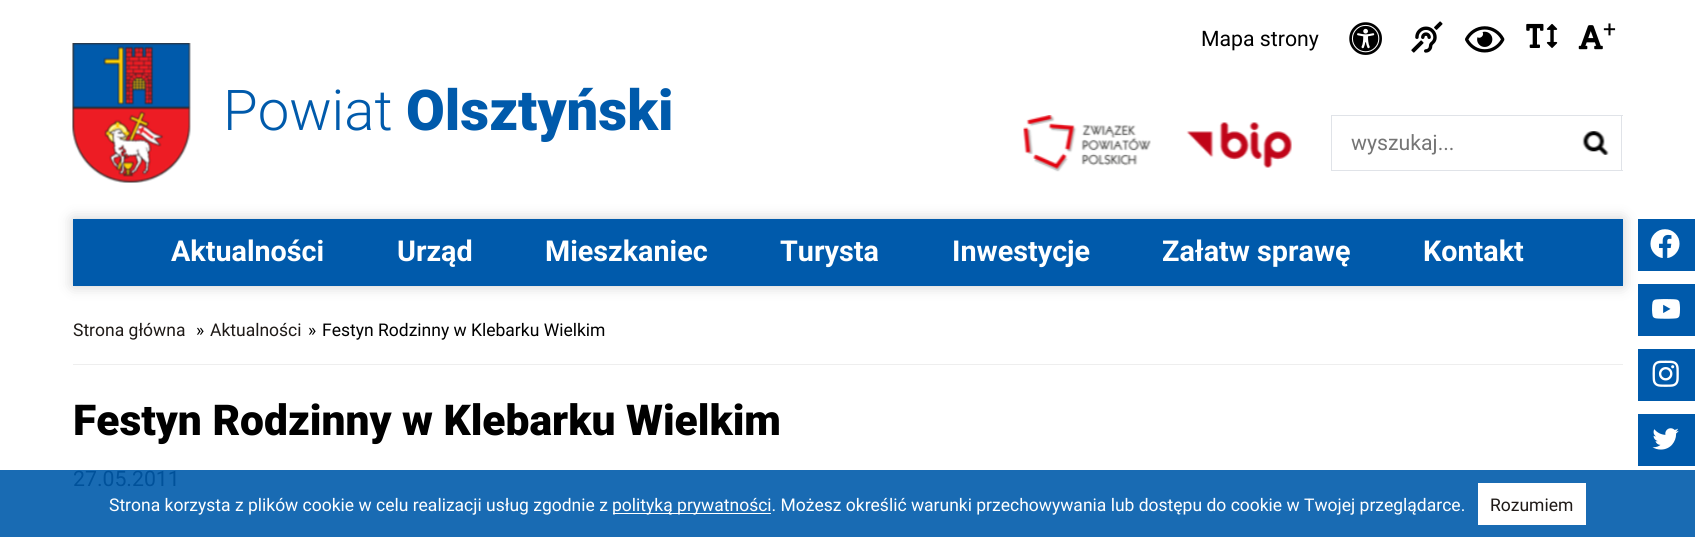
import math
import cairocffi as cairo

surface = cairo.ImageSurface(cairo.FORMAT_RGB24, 1695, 537)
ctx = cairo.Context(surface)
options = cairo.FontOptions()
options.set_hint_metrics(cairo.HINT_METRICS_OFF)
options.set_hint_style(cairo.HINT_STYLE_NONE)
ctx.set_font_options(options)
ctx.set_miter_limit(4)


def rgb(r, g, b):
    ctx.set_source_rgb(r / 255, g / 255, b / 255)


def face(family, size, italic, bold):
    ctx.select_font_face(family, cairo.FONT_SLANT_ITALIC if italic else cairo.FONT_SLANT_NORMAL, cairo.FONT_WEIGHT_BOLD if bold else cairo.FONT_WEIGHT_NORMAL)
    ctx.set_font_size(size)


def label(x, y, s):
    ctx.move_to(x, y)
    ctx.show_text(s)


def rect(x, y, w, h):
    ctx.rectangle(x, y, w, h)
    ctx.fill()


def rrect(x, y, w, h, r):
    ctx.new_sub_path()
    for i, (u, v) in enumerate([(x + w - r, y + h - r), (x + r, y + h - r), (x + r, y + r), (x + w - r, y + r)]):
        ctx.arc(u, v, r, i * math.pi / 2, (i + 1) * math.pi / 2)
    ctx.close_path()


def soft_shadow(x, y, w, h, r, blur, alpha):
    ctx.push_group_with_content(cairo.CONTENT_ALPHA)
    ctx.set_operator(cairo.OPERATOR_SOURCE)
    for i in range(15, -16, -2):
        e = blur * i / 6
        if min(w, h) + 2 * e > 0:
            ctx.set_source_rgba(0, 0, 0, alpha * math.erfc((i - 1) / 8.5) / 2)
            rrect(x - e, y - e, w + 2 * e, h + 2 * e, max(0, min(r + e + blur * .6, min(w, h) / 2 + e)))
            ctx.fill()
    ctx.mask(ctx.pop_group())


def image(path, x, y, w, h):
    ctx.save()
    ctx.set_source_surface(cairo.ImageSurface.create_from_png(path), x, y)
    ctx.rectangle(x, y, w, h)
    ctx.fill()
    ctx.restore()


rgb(255, 255, 255)
ctx.paint()
rgb(25, 107, 179)
rect(0, 470, 1695, 67)
face('Roboto', 21.25, 0, 0)
rgb(0, 0, 0)
label(1201, 46, 'Mapa strony')
image('image0.png', 1349, 22, 33, 33)
image('image1.png', 1411, 21, 32, 32)
image('image2.png', 1465, 26, 40, 27)
image('image3.png', 1526, 23, 32, 25)
image('image4.png', 1578, 25, 25, 25)
face('Roboto', 23, 0, 0)
label(1603, 37, '+')
image('image5.png', 72, 43, 119, 140)
face('Roboto Light', 56.25, 0, 0)
rgb(0, 90, 171)
label(223, 130, 'Powiat')
face('Roboto Black', 56.25, 0, 0)
label(406, 130, 'Olsztyński')
image('image6.png', 1023, 115, 128, 57)
image('image7.png', 1186, 122, 106, 46)
rgb(224, 227, 232)
rect(1331, 115, 292, 1)
rect(1331, 170, 239, 1)
rect(1331, 115, 1, 56)
face('Roboto', 21.25, 0, 0)
rgb(117, 117, 117)
label(1351, 150, 'wyszukaj...')
image('image8.png', 1582, 131, 27, 24)
rgb(224, 227, 232)
rect(1621, 115, 1, 56)
rect(1570, 170, 53, 1)
rgb(0, 90, 171)
rect(1638, 219, 57, 52)
rect(1638, 284, 57, 52)
rgb(0, 0, 0)
soft_shadow(73, 219, 1550, 67, 0, 7, 0.2)
rgb(0, 90, 171)
rect(73, 219, 1550, 67)
face('Roboto', 28.75, 0, 1)
rgb(255, 255, 255)
label(171, 261, 'Aktualności')
label(397, 261, 'Urząd')
label(545, 261, 'Mieszkaniec')
label(780, 261, 'Turysta')
label(952, 261, 'Inwestycje')
label(1162, 261, 'Załatw sprawę')
label(1423, 261, 'Kontakt')
image('image9.png', 1650, 229, 30, 29)
image('image10.png', 1652, 299, 28, 20)
rgb(0, 90, 171)
rect(1638, 349, 57, 52)
image('image11.png', 1652, 360, 27, 27)
rect(1638, 414, 57, 52)
image('image12.png', 1652, 428, 27, 22)
rgb(238, 238, 238)
rect(73, 364, 1550, 1)
face('Roboto', 17.5, 0, 0)
rgb(31, 26, 23)
label(73, 336, 'Strona główna')
rgb(0, 0, 0)
label(196, 336, '»')
rgb(31, 26, 23)
label(210, 336, 'Aktualności')
rgb(0, 0, 0)
label(308, 336, '»')
label(322, 336, 'Festyn Rodzinny w Klebarku Wielkim')
face('Roboto Black', 42.5, 0, 0)
label(73, 435, 'Festyn Rodzinny w Klebarku Wielkim')
face('Roboto', 21.25, 0, 0)
rgb(0, 81, 154)
label(73, 486, '27.05.2011')
face('Roboto', 17.5, 0, 0)
rgb(255, 255, 255)
label(109, 511, 'Strona korzysta z plików cookie w celu realizacji usług zgodnie z')
rect(613, 513, 158, 1)
label(612, 511, 'polityką prywatności. Możesz określić warunki przechowywania lub dostępu do cookie w Twojej przeglądarce.')
rect(1478, 483, 108, 42)
rgb(31, 26, 23)
label(1490, 511, 'Rozumiem')
surface.write_to_png('render.png')
